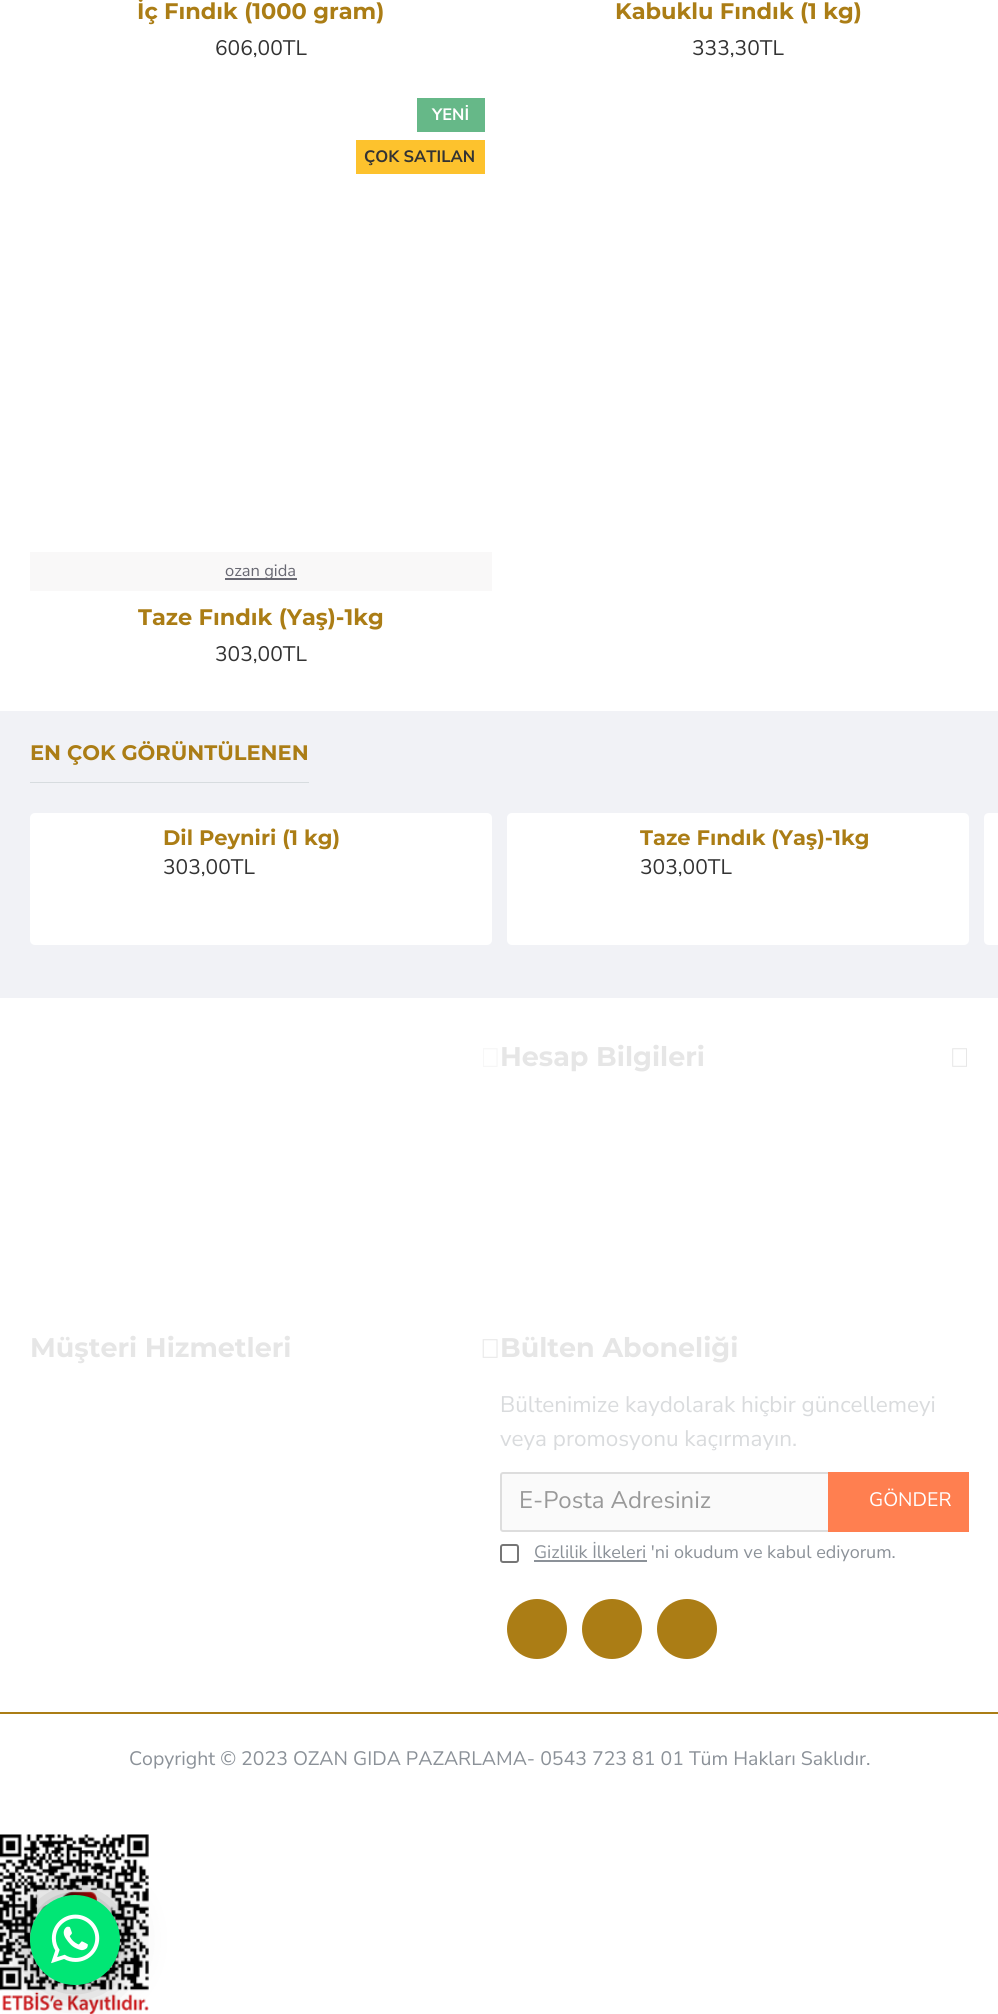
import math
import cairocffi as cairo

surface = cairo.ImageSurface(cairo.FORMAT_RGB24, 998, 2014)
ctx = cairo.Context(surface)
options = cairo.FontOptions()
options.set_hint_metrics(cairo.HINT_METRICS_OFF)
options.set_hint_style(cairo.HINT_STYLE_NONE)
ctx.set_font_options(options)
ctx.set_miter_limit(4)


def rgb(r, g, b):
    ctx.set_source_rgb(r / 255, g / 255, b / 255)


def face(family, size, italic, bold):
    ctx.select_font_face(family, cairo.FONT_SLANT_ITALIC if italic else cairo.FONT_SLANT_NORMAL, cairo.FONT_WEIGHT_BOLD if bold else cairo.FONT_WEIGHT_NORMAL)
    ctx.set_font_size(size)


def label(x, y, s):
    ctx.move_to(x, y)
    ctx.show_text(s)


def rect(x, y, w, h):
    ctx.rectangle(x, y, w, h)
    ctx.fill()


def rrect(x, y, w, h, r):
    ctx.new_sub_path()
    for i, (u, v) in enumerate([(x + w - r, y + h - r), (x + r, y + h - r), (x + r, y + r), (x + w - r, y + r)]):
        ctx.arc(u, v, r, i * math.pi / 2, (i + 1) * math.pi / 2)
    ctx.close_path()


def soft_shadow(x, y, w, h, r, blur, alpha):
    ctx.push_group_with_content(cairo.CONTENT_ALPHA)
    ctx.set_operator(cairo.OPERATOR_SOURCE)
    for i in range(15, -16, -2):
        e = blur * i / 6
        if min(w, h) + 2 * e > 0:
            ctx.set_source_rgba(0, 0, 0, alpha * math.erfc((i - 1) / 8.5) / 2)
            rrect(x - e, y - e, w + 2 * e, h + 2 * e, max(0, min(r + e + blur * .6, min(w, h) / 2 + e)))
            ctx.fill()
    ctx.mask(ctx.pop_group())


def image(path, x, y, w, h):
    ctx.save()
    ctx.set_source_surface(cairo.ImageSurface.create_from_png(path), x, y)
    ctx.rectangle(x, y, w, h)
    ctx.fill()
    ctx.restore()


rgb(255, 255, 255)
ctx.paint()
face('Montserrat', 22.5, 0, 1)
rgb(171, 125, 21)
label(137, 19, 'İç Fındık (1000 gram)')
face('Nunito Sans', 21, 0, 0)
rgb(51, 51, 51)
label(215, 55, '606,00TL')
face('Montserrat', 22.5, 0, 1)
rgb(171, 125, 21)
label(615, 19, 'Kabuklu Fındık (1 kg)')
face('Nunito Sans', 21, 0, 0)
rgb(51, 51, 51)
label(692, 55, '333,30TL')
rgb(102, 184, 136)
rect(417, 98, 68, 34)
face('Nunito Sans', 16.5, 0, 1)
rgb(255, 255, 255)
label(432, 120, 'YENİ')
rgb(253, 194, 45)
rect(356, 140, 129, 34)
rgb(51, 51, 51)
label(364, 162, 'ÇOK SATILAN')
rgb(249, 248, 248)
rect(30, 552, 462, 39)
rgb(105, 105, 115)
rect(225, 578, 72, 2)
face('Nunito Sans', 16.5, 0, 0)
label(225, 576, 'ozan gida')
face('Montserrat', 22.5, 0, 1)
rgb(171, 125, 21)
label(138, 625, 'Taze Fındık (Yaş)-1kg')
face('Nunito Sans', 21, 0, 0)
rgb(51, 51, 51)
label(215, 661, '303,00TL')
rgb(241, 242, 246)
rect(0, 711, 998, 287)
rgb(215, 220, 223)
rect(30, 782, 279, 1)
face('Montserrat', 21, 0, 1)
rgb(171, 125, 21)
label(30, 760, 'EN ÇOK GÖRÜNTÜLENEN')
rgb(255, 255, 255)
rrect(30, 813, 462, 132, 5)
ctx.fill()
rgb(171, 125, 21)
label(163, 845, 'Dil Peyniri (1 kg)')
face('Nunito Sans', 21, 0, 0)
rgb(51, 51, 51)
label(163, 874, '303,00TL')
rgb(255, 255, 255)
rrect(507, 813, 462, 132, 5)
ctx.fill()
face('Montserrat', 21, 0, 1)
rgb(171, 125, 21)
label(640, 845, 'Taze Fındık (Yaş)-1kg')
face('Nunito Sans', 21, 0, 0)
rgb(51, 51, 51)
label(640, 874, '303,00TL')
rgb(255, 255, 255)
ctx.new_path()
ctx.move_to(989, 813)
ctx.line_to(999, 813)
ctx.line_to(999, 945)
ctx.line_to(989, 945)
ctx.curve_to(986, 945, 984, 943, 984, 940)
ctx.line_to(984, 818)
ctx.curve_to(984, 815, 986, 813, 989, 813)
ctx.close_path()
ctx.fill()
image('image0.png', 483, 1048, 15, 19)
face('Montserrat', 27, 0, 1)
rgb(230, 230, 230)
label(500, 1066, 'Hesap Bilgileri')
image('image1.png', 952, 1048, 15, 19)
label(30, 1357, 'Müşteri Hizmetleri')
image('image2.png', 482, 1339, 16, 19)
label(500, 1357, 'Bülten Aboneliği')
face('Nunito Sans', 22.5, 0, 0)
rgb(217, 219, 221)
label(500, 1412, 'Bültenimize kaydolarak hiçbir güncellemeyi')
label(500, 1446, 'veya promosyonu kaçırmayın.')
rgb(250, 250, 250)
rrect(501, 1473, 467, 58, 2)
ctx.fill_preserve()
rgb(221, 221, 221)
ctx.stroke()
face('Nunito Sans', 24, 0, 0)
rgb(153, 153, 153)
label(519, 1508, 'E-Posta Adresiniz')
rgb(255, 127, 80)
rect(828, 1472, 141, 60)
face('Nunito Sans', 19.5, 0, 0)
rgb(255, 255, 255)
label(869, 1506, 'GÖNDER')
rrect(501, 1545, 17, 17, 2)
rgb(118, 118, 118)
ctx.stroke()
rgb(139, 145, 152)
rect(534, 1560, 113, 2)
face('Nunito Sans', 18, 0, 0)
label(534, 1558, 'Gizlilik İlkeleri \'ni okudum ve kabul ediyorum.')
rgb(171, 125, 21)
ctx.new_path()
ctx.arc(537, 1629, 30, 0, 2 * math.pi)
ctx.fill()
ctx.arc(612, 1629, 30, 0, 2 * math.pi)
ctx.fill()
ctx.arc(687, 1629, 30, 0, 2 * math.pi)
ctx.fill()
rect(0, 1712, 998, 2)
face('Nunito Sans', 19.5, 0, 0)
rgb(139, 145, 152)
label(129, 1765, 'Copyright © 2023 OZAN GIDA PAZARLAMA- 0543 723 81 01 Tüm Hakları Saklıdır.')
image('image3.png', 0, 1834, 149, 180)
rgb(0, 0, 0)
soft_shadow(30, 1895, 90, 90, 45, 19, 0.4)
rgb(1, 230, 117)
ctx.arc(75, 1940, 45, 0, 2 * math.pi)
ctx.fill()
image('image4.png', 51, 1914, 49, 50)
surface.write_to_png('render.png')
